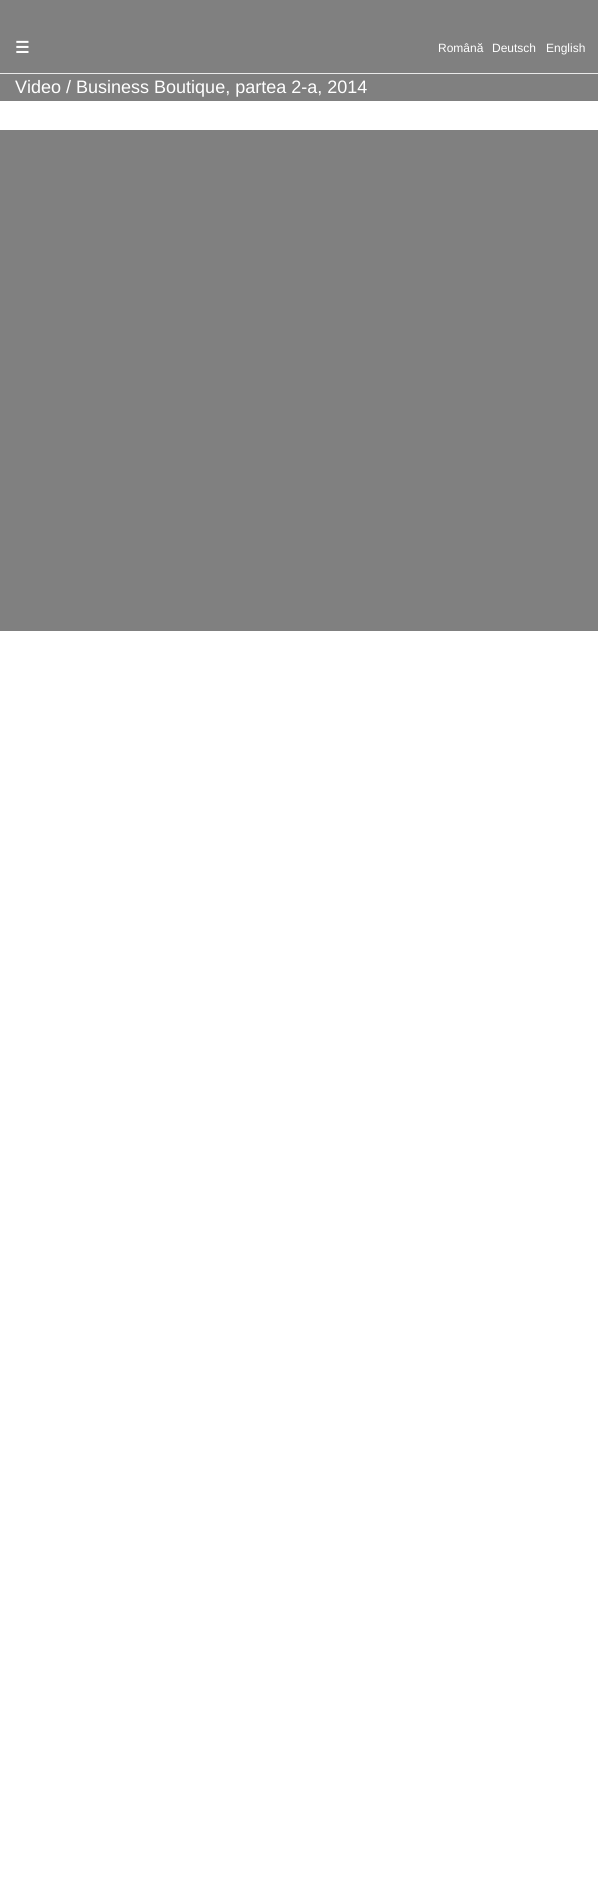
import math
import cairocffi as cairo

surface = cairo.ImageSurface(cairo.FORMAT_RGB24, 598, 1894)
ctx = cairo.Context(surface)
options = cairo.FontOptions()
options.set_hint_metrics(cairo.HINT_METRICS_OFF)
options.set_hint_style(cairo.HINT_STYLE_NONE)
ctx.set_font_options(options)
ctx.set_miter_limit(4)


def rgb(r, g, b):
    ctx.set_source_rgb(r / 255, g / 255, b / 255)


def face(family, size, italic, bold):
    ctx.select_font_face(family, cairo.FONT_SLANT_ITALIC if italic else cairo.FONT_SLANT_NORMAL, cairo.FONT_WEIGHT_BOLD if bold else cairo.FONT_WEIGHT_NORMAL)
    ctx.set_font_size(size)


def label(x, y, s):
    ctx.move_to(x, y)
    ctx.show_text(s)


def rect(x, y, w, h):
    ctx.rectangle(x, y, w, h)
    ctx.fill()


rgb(255, 255, 255)
ctx.paint()
rgb(128, 128, 128)
rect(0, 0, 598, 73)
rgb(234, 234, 234)
rect(0, 73, 598, 1)
face('DejaVu Sans', 16, 0, 1)
rgb(255, 255, 255)
label(15, 53, '☰')
face('Liberation Sans', 12, 0, 0)
label(438, 52, 'Română')
label(492, 52, 'Deutsch')
label(546, 52, 'English')
rgb(128, 128, 128)
rect(0, 74, 598, 27)
face('Liberation Sans', 18, 0, 0)
rgb(255, 255, 255)
label(15, 93, 'Video / Business Boutique, partea 2-a, 2014')
rgb(128, 128, 128)
rect(0, 130, 598, 501)
surface.write_to_png('render.png')
